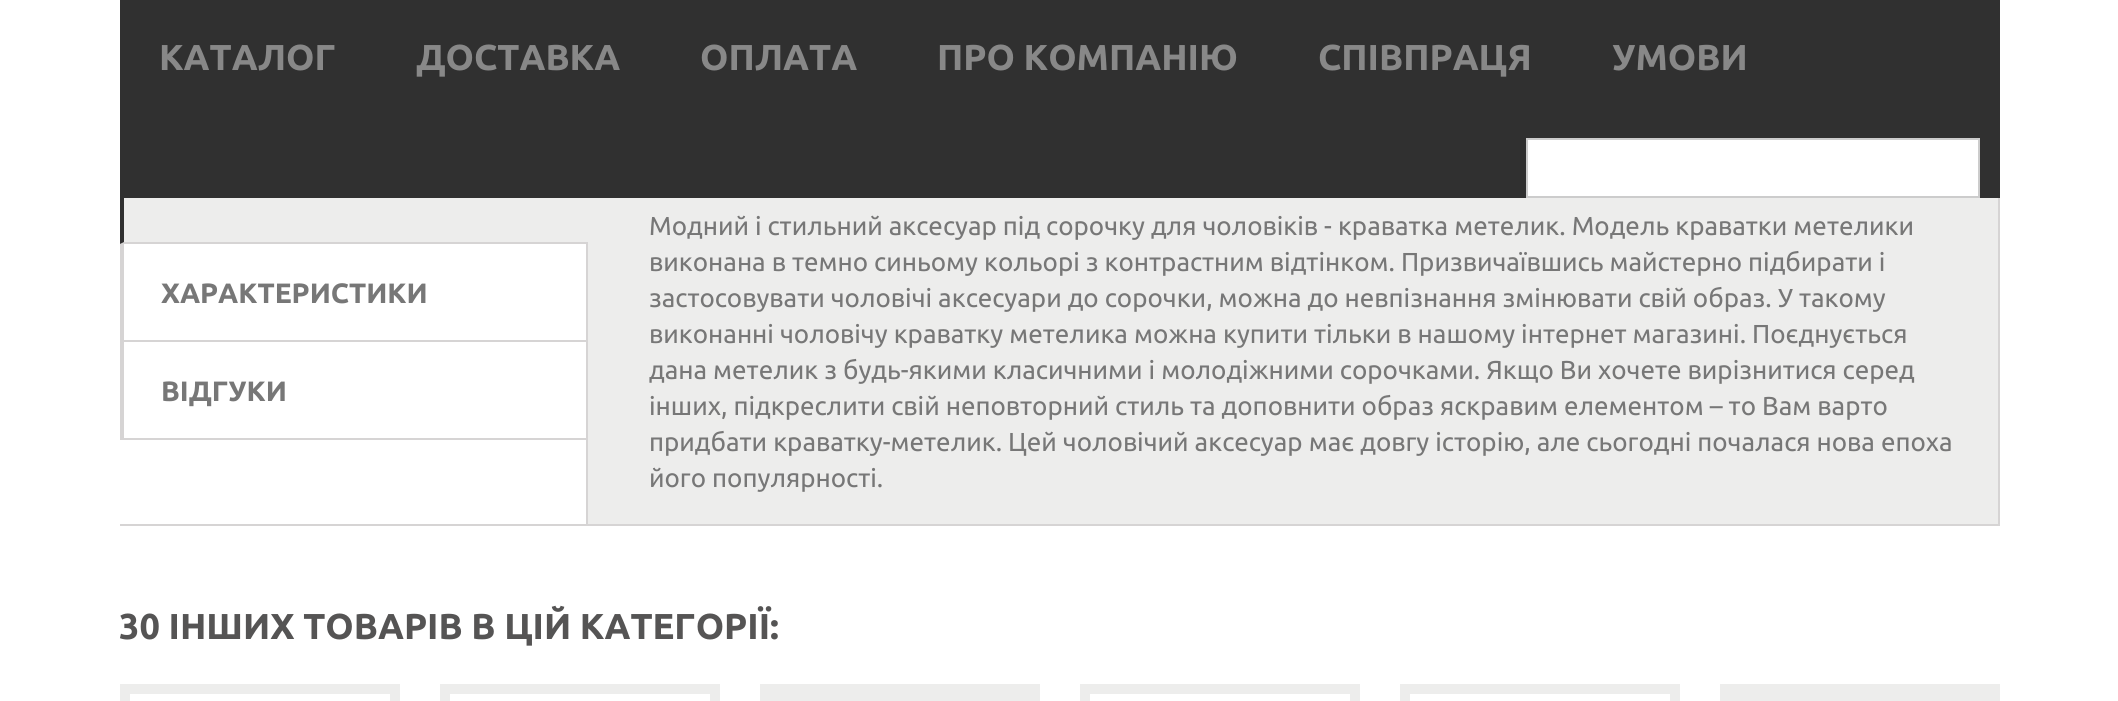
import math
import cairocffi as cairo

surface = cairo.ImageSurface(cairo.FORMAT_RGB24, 2118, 701)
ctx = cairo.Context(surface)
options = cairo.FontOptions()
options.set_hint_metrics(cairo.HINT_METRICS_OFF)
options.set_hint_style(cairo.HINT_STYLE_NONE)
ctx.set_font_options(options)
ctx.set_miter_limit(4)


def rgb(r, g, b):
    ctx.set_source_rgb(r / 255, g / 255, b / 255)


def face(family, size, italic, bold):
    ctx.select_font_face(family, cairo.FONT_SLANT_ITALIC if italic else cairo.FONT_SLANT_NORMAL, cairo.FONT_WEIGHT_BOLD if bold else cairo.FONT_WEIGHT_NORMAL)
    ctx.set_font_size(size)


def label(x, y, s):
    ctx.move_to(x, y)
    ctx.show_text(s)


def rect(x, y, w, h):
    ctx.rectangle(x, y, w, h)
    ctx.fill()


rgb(255, 255, 255)
ctx.paint()
rgb(237, 237, 236)
rect(120, 198, 468, 46)
rgb(214, 212, 212)
ctx.new_path()
ctx.move_to(588, 244)
ctx.line_to(120, 244)
ctx.line_to(124, 242)
ctx.line_to(588, 242)
ctx.close_path()
ctx.fill()
rgb(48, 48, 48)
ctx.new_path()
ctx.move_to(120, 244)
ctx.line_to(120, 146)
ctx.line_to(124, 146)
ctx.line_to(124, 242)
ctx.close_path()
ctx.fill()
rect(120, 0, 1880, 198)
face('Ubuntu', 36, 0, 1)
rgb(136, 136, 136)
label(159, 70, 'КАТАЛОГ')
label(416, 70, 'ДОСТАВКА')
label(700, 70, 'ОПЛАТА')
label(937, 70, 'ПРО КОМПАНІЮ')
label(1318, 70, 'СПІВПРАЦЯ')
label(1612, 70, 'УМОВИ')
rgb(255, 255, 255)
ctx.rectangle(1527, 139, 452, 58)
ctx.fill_preserve()
rgb(204, 204, 204)
ctx.stroke()
rgb(214, 212, 212)
rect(1998, 198, 2, 328)
rect(120, 524, 1880, 2)
rect(586, 244, 2, 280)
rect(120, 340, 468, 2)
rect(120, 244, 4, 98)
face('Ubuntu', 28, 0, 1)
rgb(119, 119, 119)
label(161, 303, 'ХАРАКТЕРИСТИКИ')
rgb(214, 212, 212)
rect(120, 438, 468, 2)
rect(120, 342, 4, 98)
rgb(119, 119, 119)
label(161, 401, 'ВІДГУКИ')
rgb(237, 237, 236)
rect(588, 198, 1410, 326)
face('Ubuntu', 26, 0, 0)
rgb(119, 119, 119)
label(649, 235, 'Модний і стильний аксесуар під сорочку для чоловіків - краватка метелик. Модель краватки метелики')
label(649, 271, 'виконана в темно синьому кольорі з контрастним відтінком. Призвичаївшись майстерно підбирати і')
label(649, 307, 'застосовувати чоловічі аксесуари до сорочки, можна до невпізнання змінювати свій образ. У такому')
label(649, 343, 'виконанні чоловічу краватку метелика можна купити тільки в нашому інтернет магазині. Поєднується')
label(649, 379, 'дана метелик з будь-якими класичними і молодіжними сорочками. Якщо Ви хочете вирізнитися серед')
label(649, 415, 'інших, підкреслити свій неповторний стиль та доповнити образ яскравим елементом – то Вам варто')
label(649, 451, 'придбати краватку-метелик. Цей чоловічий аксесуар має довгу історію, але сьогодні почалася нова епоха')
label(649, 487, 'його популярності.')
face('Ubuntu', 36, 0, 1)
rgb(85, 84, 84)
label(119, 639, '30 ІНШИХ ТОВАРІВ В ЦІЙ КАТЕГОРІЇ:')
rgb(237, 237, 236)
rect(120, 684, 280, 17)
rgb(255, 255, 255)
rect(130, 694, 260, 7)
rgb(237, 237, 236)
rect(440, 684, 280, 17)
rgb(255, 255, 255)
rect(450, 694, 260, 7)
rgb(237, 237, 236)
rect(760, 684, 280, 17)
rect(1080, 684, 280, 17)
rgb(255, 255, 255)
rect(1090, 694, 260, 7)
rgb(237, 237, 236)
rect(1400, 684, 280, 17)
rgb(255, 255, 255)
rect(1410, 694, 260, 7)
rgb(237, 237, 236)
rect(1720, 684, 280, 17)
surface.write_to_png('render.png')
